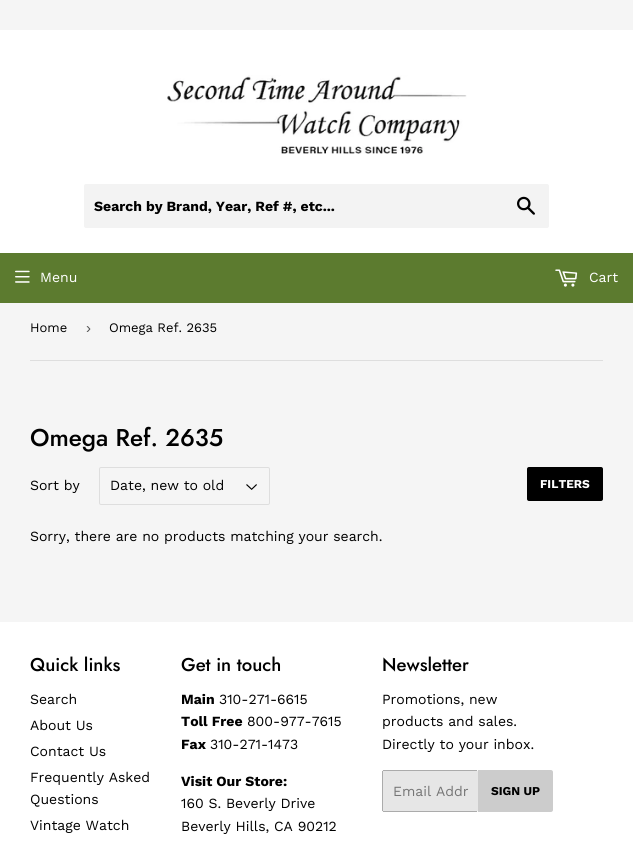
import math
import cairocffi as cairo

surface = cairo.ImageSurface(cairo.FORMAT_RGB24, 633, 845)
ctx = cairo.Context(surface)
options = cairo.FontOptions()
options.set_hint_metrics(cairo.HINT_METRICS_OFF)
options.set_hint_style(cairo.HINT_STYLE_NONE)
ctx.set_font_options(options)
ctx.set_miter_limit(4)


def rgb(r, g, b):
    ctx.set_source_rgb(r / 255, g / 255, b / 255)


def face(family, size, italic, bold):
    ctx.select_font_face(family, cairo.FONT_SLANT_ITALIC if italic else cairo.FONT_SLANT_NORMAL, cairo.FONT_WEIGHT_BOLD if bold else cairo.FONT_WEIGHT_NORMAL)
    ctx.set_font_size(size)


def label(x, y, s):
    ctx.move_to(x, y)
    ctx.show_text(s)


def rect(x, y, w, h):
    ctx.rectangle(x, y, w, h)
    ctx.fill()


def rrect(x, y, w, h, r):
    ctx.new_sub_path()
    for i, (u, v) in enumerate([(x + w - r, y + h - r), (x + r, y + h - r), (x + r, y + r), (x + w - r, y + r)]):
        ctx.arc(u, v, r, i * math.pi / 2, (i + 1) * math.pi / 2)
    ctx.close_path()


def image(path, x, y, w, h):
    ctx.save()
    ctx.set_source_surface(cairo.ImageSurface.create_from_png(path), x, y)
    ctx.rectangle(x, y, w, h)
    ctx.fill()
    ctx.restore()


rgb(245, 245, 245)
ctx.paint()
rgb(255, 255, 255)
rect(0, 30, 633, 223)
image('image0.png', 167, 75, 300, 79)
rgb(243, 243, 243)
rrect(84, 184, 465, 44, 2)
ctx.fill()
face('Work Sans', 14, 0, 1)
rgb(0, 0, 0)
label(94, 211, 'Search by Brand, Year, Ref #, etc...')
image('image1.png', 517, 196, 18, 19)
rgb(92, 123, 47)
rect(0, 253, 633, 50)
image('image2.png', 15, 270, 15, 13)
face('Work Sans', 14, 0, 0)
rgb(255, 255, 255)
label(40, 282, 'Menu')
image('image3.png', 555, 269, 23, 18)
label(589, 282, 'Cart')
rgb(222, 222, 222)
rect(30, 360, 573, 1)
face('Work Sans', 13, 0, 0)
rgb(0, 0, 0)
label(30, 332, 'Home')
face('Liberation Sans', 15, 0, 0)
rgb(84, 84, 84)
label(86, 333, '›')
face('Work Sans', 13, 0, 0)
rgb(0, 0, 0)
label(109, 332, 'Omega Ref. 2635')
face('Jost Medium', 24.25, 0, 0)
label(30, 446, 'Omega Ref. 2635')
face('Work Sans', 14, 0, 0)
label(30, 490, 'Sort by')
image('image4.png', 246, 484, 11, 6)
rrect(99.5, 467.5, 170, 37, 1.5)
rgb(222, 222, 222)
ctx.set_line_width(1)
ctx.stroke()
rgb(0, 0, 0)
label(110, 490, 'Date, new to old')
rrect(527, 467, 76, 34, 2)
ctx.fill()
face('Work Sans', 12, 0, 1)
rgb(255, 255, 255)
label(540, 488, 'FILTERS')
face('Work Sans', 14, 0, 0)
rgb(0, 0, 0)
label(30, 541, 'Sorry, there are no products matching your search.')
rgb(255, 255, 255)
rect(0, 622, 633, 223)
face('Jost Medium', 18.5, 0, 0)
rgb(0, 0, 0)
label(30, 671, 'Quick links')
face('Work Sans', 14, 0, 0)
label(30, 704, 'Search')
label(30, 730, 'About Us')
label(30, 756, 'Contact Us')
label(30, 782, 'Frequently Asked')
label(30, 804, 'Questions')
label(30, 830, 'Vintage Watch')
face('Jost Medium', 18.5, 0, 0)
label(181, 671, 'Get in touch')
face('Work Sans', 14, 0, 1)
label(181, 704, 'Main')
face('Work Sans', 14, 0, 0)
label(219, 704, '310-271-6615')
face('Work Sans', 14, 0, 1)
label(181, 726, 'Toll Free')
face('Work Sans', 14, 0, 0)
label(247, 726, '800-977-7615')
face('Work Sans', 14, 0, 1)
label(181, 749, 'Fax')
face('Work Sans', 14, 0, 0)
label(210, 749, '310-271-1473')
face('Work Sans', 14, 0, 1)
label(181, 786, 'Visit Our Store:')
face('Work Sans', 14, 0, 0)
label(181, 808, '160 S. Beverly Drive')
label(181, 831, 'Beverly Hills, CA 90212')
face('Jost Medium', 18.5, 0, 0)
label(382, 671, 'Newsletter')
face('Work Sans', 14, 0, 0)
label(382, 704, 'Promotions, new')
label(382, 726, 'products and sales.')
label(382, 749, 'Directly to your inbox.')
rgb(230, 230, 230)
rrect(382, 770, 96, 42, 2)
ctx.fill()
rgb(171, 171, 171)
rect(383, 770, 94, 1)
rect(383, 811, 94, 1)
rect(382, 771, 1, 40)
rgb(117, 117, 117)
label(393, 796, 'Email Addr')
rgb(204, 204, 204)
ctx.new_path()
ctx.move_to(478, 770)
ctx.line_to(551, 770)
ctx.curve_to(552, 770, 553, 771, 553, 772)
ctx.line_to(553, 810)
ctx.curve_to(553, 811, 552, 812, 551, 812)
ctx.line_to(478, 812)
ctx.close_path()
ctx.fill()
face('Work Sans', 12, 0, 1)
rgb(0, 0, 0)
label(491, 795, 'SIGN UP')
surface.write_to_png('render.png')
